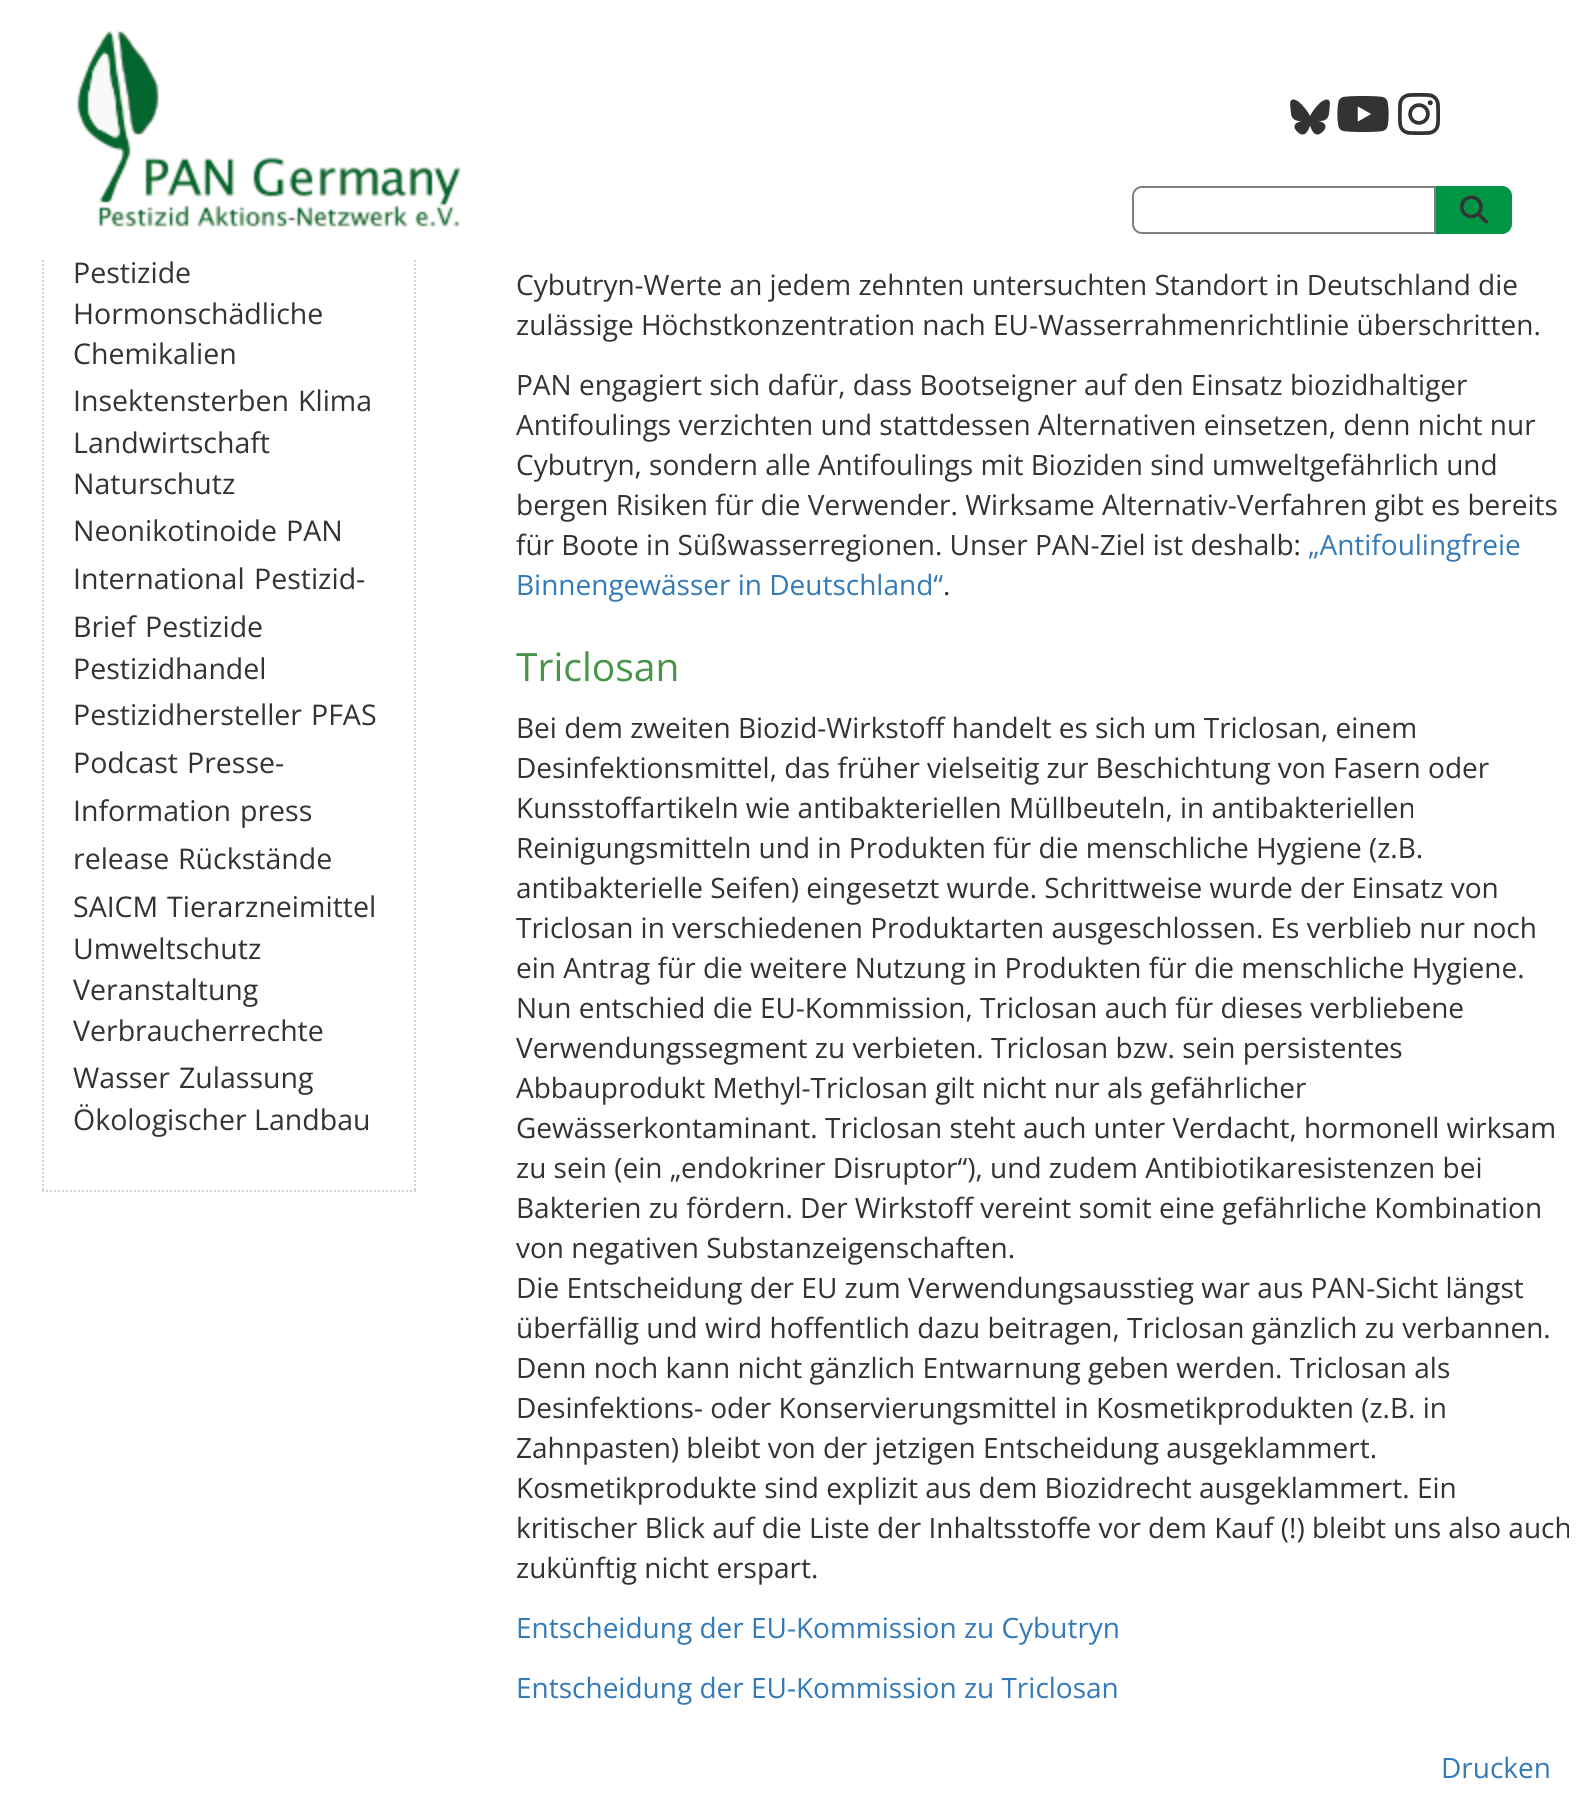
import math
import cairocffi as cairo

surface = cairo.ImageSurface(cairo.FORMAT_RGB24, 1582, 1811)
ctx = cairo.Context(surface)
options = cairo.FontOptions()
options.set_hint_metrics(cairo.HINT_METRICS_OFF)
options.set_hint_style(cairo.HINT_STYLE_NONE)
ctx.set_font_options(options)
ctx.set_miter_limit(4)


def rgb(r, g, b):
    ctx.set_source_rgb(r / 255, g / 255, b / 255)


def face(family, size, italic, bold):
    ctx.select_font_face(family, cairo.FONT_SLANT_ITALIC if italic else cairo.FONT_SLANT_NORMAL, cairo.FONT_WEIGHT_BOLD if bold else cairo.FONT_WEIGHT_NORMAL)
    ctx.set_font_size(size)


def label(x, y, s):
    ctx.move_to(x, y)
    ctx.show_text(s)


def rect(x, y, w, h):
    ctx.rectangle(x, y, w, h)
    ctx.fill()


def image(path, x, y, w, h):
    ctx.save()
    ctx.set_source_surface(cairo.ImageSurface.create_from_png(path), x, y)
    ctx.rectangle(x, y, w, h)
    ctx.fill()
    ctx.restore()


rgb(255, 255, 255)
ctx.paint()
ctx.new_path()
ctx.move_to(415, -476)
ctx.line_to(415, 1192)
rgb(211, 211, 211)
ctx.set_dash([2, 2])
ctx.stroke()
ctx.new_path()
ctx.move_to(43, -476)
ctx.line_to(43, 1192)
ctx.stroke()
rgb(255, 255, 255)
rect(42, 0, 374, 258)
image('image0.png', 77, 31, 384, 196)
image('image1.png', 1290, 99, 40, 36)
image('image2.png', 1337, 96, 52, 36)
image('image3.png', 1398, 93, 42, 42)
ctx.new_path()
ctx.move_to(1142, 187)
ctx.line_to(1435, 187)
ctx.line_to(1435, 233)
ctx.line_to(1142, 233)
ctx.curve_to(1137, 233, 1133, 229, 1133, 224)
ctx.line_to(1133, 196)
ctx.curve_to(1133, 191, 1137, 187, 1142, 187)
ctx.close_path()
rgb(128, 128, 128)
ctx.set_dash([])
ctx.stroke()
rgb(0, 149, 68)
ctx.new_path()
ctx.move_to(1437, 187)
ctx.line_to(1502, 187)
ctx.curve_to(1507, 187, 1511, 191, 1511, 196)
ctx.line_to(1511, 224)
ctx.curve_to(1511, 229, 1507, 233, 1502, 233)
ctx.line_to(1437, 233)
ctx.close_path()
ctx.fill_preserve()
ctx.stroke()
image('image4.png', 1460, 195, 28, 29)
ctx.new_path()
ctx.move_to(42, 1191)
ctx.line_to(416, 1191)
rgb(211, 211, 211)
ctx.set_dash([2, 2])
ctx.stroke()
face('Open Sans', 28.5, 0, 0)
rgb(51, 51, 51)
label(73, 283, 'Pestizide')
label(73, 324, 'Hormonschädliche')
label(73, 364, 'Chemikalien')
label(73, 411, 'Insektensterben')
label(298, 411, 'Klima')
label(73, 453, 'Landwirtschaft')
label(73, 494, 'Naturschutz')
label(73, 541, 'Neonikotinoide')
label(286, 541, 'PAN')
label(73, 589, 'International')
label(254, 589, 'Pestizid-')
label(73, 637, 'Brief')
label(145, 637, 'Pestizide')
label(73, 679, 'Pestizidhandel')
label(73, 725, 'Pestizidhersteller')
label(311, 725, 'PFAS')
label(73, 773, 'Podcast')
label(187, 773, 'Presse-')
label(73, 821, 'Information')
label(240, 821, 'press')
label(73, 869, 'release')
label(178, 869, 'Rückstände')
label(73, 917, 'SAICM')
label(167, 917, 'Tierarzneimittel')
label(73, 959, 'Umweltschutz')
label(73, 1000, 'Veranstaltung')
label(73, 1041, 'Verbraucherrechte')
label(73, 1088, 'Wasser')
label(179, 1088, 'Zulassung')
label(73, 1130, 'Ökologischer Landbau')
face('Open Sans', 28, 0, 0)
label(516, 295, 'Cybutryn-Werte an jedem zehnten untersuchten Standort in Deutschland die')
label(516, 335, 'zulässige Höchstkonzentration nach EU-Wasserrahmenrichtlinie überschritten.')
label(516, 395, 'PAN engagiert sich dafür, dass Bootseigner auf den Einsatz biozidhaltiger')
label(516, 435, 'Antifoulings verzichten und stattdessen Alternativen einsetzen, denn nicht nur')
label(516, 475, 'Cybutryn, sondern alle Antifoulings mit Bioziden sind umweltgefährlich und')
label(516, 515, 'bergen Risiken für die Verwender. Wirksame Alternativ-Verfahren gibt es bereits')
label(516, 555, 'für Boote in Süßwasserregionen. Unser PAN-Ziel ist deshalb:')
rgb(51, 122, 183)
label(1308, 555, '„Antifoulingfreie')
label(516, 595, 'Binnengewässer in Deutschland“')
rgb(51, 51, 51)
label(943, 595, '.')
face('Open Sans', 39, 0, 0)
rgb(72, 149, 73)
label(516, 681, 'Triclosan')
face('Open Sans', 28, 0, 0)
rgb(51, 51, 51)
label(516, 738, 'Bei dem zweiten Biozid-Wirkstoff handelt es sich um Triclosan, einem')
label(516, 778, 'Desinfektionsmittel, das früher vielseitig zur Beschichtung von Fasern oder')
label(516, 818, 'Kunsstoffartikeln wie antibakteriellen Müllbeuteln, in antibakteriellen')
label(516, 858, 'Reinigungsmitteln und in Produkten für die menschliche Hygiene (z.B.')
label(516, 898, 'antibakterielle Seifen) eingesetzt wurde. Schrittweise wurde der Einsatz von')
label(516, 938, 'Triclosan in verschiedenen Produktarten ausgeschlossen. Es verblieb nur noch')
label(516, 978, 'ein Antrag für die weitere Nutzung in Produkten für die menschliche Hygiene.')
label(516, 1018, 'Nun entschied die EU-Kommission, Triclosan auch für dieses verbliebene')
label(516, 1058, 'Verwendungssegment zu verbieten. Triclosan bzw. sein persistentes')
label(516, 1098, 'Abbauprodukt Methyl-Triclosan gilt nicht nur als gefährlicher')
label(516, 1138, 'Gewässerkontaminant. Triclosan steht auch unter Verdacht, hormonell wirksam')
label(516, 1178, 'zu sein (ein „endokriner Disruptor“), und zudem Antibiotikaresistenzen bei')
label(516, 1218, 'Bakterien zu fördern. Der Wirkstoff vereint somit eine gefährliche Kombination')
label(516, 1258, 'von negativen Substanzeigenschaften.')
label(516, 1298, 'Die Entscheidung der EU zum Verwendungsausstieg war aus PAN-Sicht längst')
label(516, 1338, 'überfällig und wird hoffentlich dazu beitragen, Triclosan gänzlich zu verbannen.')
label(516, 1378, 'Denn noch kann nicht gänzlich Entwarnung geben werden. Triclosan als')
label(516, 1418, 'Desinfektions- oder Konservierungsmittel in Kosmetikprodukten (z.B. in')
label(516, 1458, 'Zahnpasten) bleibt von der jetzigen Entscheidung ausgeklammert.')
label(516, 1498, 'Kosmetikprodukte sind explizit aus dem Biozidrecht ausgeklammert. Ein')
label(516, 1538, 'kritischer Blick auf die Liste der Inhaltsstoffe vor dem Kauf (!) bleibt uns also auch')
label(516, 1578, 'zukünftig nicht erspart.')
rgb(51, 122, 183)
label(516, 1638, 'Entscheidung der EU-Kommission zu Cybutryn')
label(516, 1698, 'Entscheidung der EU-Kommission zu Triclosan')
label(1441, 1778, 'Drucken')
surface.write_to_png('render.png')
